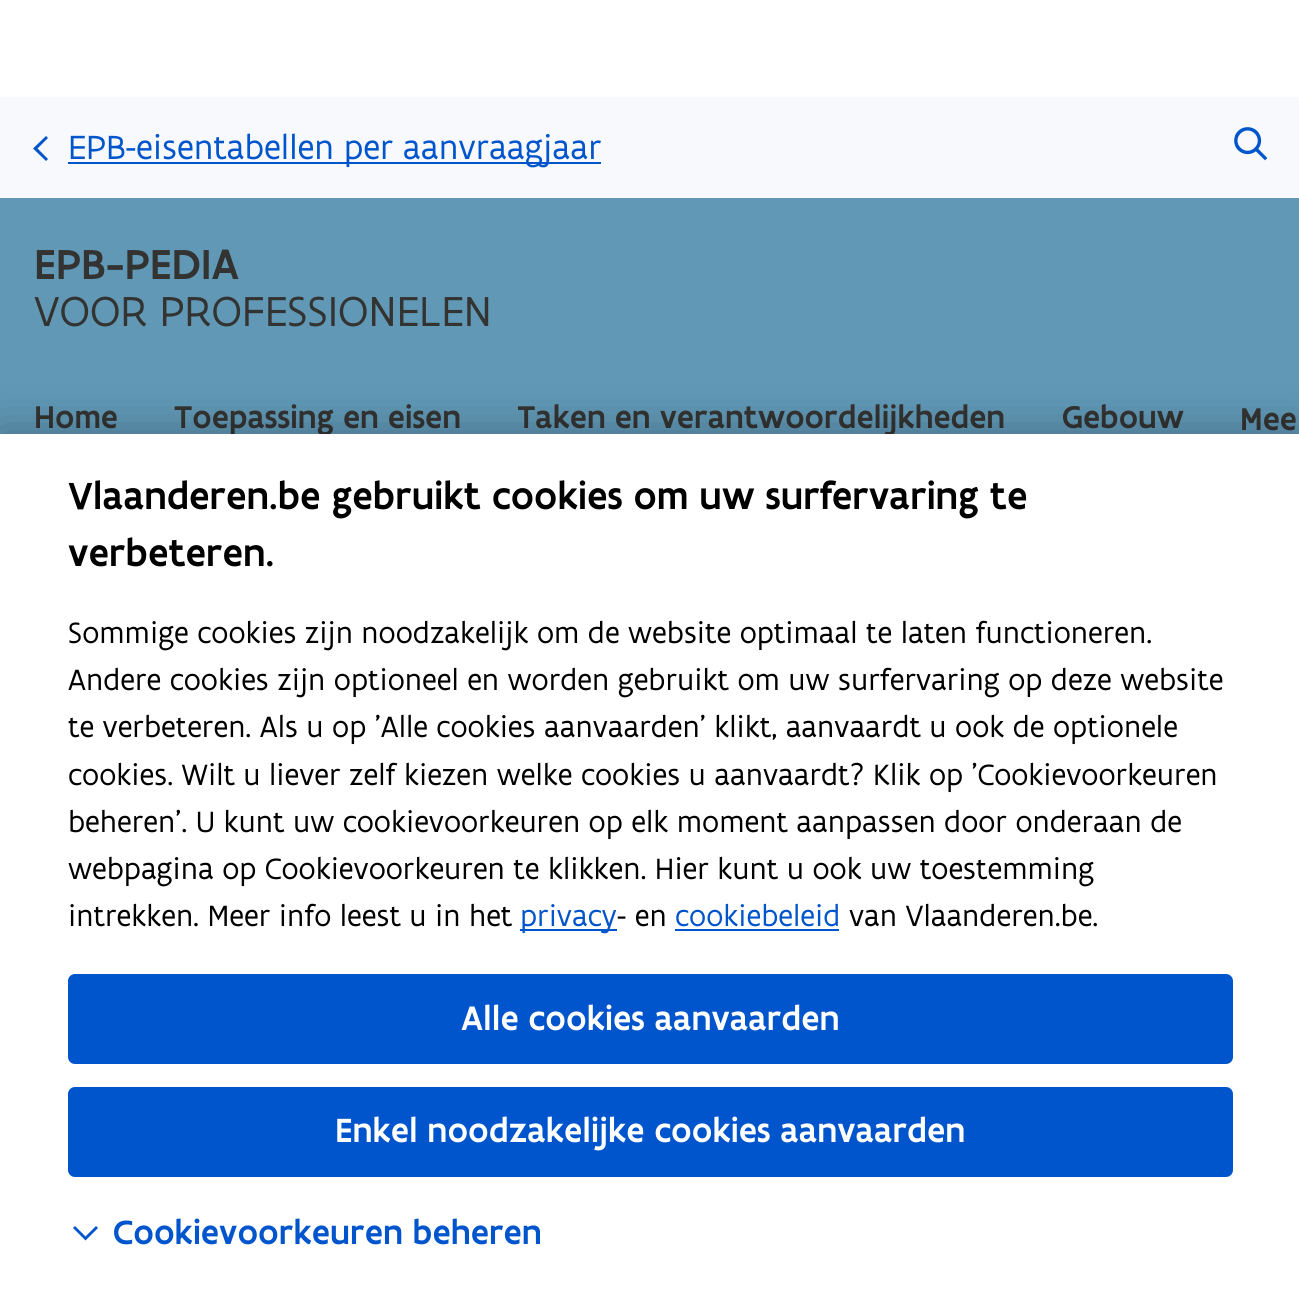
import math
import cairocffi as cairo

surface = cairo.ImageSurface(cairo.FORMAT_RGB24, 1299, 1291)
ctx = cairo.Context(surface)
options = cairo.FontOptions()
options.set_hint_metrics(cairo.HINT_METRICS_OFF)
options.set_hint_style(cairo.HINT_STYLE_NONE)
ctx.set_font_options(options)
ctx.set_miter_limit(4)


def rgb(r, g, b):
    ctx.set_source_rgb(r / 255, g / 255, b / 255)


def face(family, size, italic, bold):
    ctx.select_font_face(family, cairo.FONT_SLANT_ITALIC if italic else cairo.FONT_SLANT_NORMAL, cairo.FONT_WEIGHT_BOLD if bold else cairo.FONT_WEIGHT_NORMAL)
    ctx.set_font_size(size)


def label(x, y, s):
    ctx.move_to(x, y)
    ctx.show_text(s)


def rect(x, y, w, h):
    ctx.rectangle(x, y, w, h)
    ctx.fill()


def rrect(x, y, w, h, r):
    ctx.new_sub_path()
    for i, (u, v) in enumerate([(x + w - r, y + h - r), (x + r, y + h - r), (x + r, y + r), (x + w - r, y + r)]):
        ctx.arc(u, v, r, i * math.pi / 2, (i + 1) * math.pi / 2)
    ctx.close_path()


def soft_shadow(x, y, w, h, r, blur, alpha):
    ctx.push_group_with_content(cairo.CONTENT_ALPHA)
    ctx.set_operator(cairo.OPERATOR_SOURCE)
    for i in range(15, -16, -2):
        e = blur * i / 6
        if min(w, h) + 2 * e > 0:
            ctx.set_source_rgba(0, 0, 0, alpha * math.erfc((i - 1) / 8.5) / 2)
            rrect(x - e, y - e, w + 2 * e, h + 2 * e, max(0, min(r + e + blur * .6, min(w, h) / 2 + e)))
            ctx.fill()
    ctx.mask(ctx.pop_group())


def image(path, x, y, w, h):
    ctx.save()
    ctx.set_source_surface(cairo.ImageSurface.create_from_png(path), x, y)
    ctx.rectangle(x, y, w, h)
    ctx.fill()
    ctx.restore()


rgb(255, 255, 255)
ctx.paint()
rgb(247, 249, 252)
rect(0, 97, 1299, 101)
rgb(0, 85, 204)
ctx.new_path()
ctx.move_to(46, 161)
ctx.line_to(33, 148.5)
ctx.line_to(46, 136)
ctx.line_to(48, 138)
ctx.line_to(37.5, 148.5)
ctx.line_to(48, 159)
ctx.close_path()
ctx.fill()
rect(68, 162, 533, 2)
face('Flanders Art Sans', 36, 0, 0)
label(68, 159, 'EPB-eisentabellen per aanvraagjaar')
image('image0.png', 1234, 127, 34, 34)
rgb(96, 152, 182)
rect(0, 198, 1299, 236)
face('Flanders Art Sans Medium', 45, 0, 0)
rgb(51, 51, 50)
label(34, 279, 'EPB-PEDIA')
face('Flanders Art Sans', 45, 0, 0)
label(34, 326, 'VOOR PROFESSIONELEN')
face('Flanders Art Sans Medium', 33.75, 0, 0)
label(34, 428, 'Home')
label(174, 428, 'Toepassing en eisen')
ctx.save()
ctx.rectangle(518, 396, 488, 45)
ctx.clip()
label(517, 428, 'Taken en verantwoordelijkheden')
ctx.restore()
label(1062, 428, 'Gebouw')
label(1240, 430, 'Mee')
rgb(0, 0, 0)
soft_shadow(0, 434, 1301, 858, 0, 23.5, 0.3)
rgb(255, 255, 255)
rect(0, 434, 1299, 857)
face('Flanders Art Sans Medium', 40.5, 0, 0)
rgb(0, 0, 0)
label(68, 509, 'Vlaanderen.be gebruikt cookies om uw surfervaring te')
label(68, 566, 'verbeteren.')
face('Flanders Art Sans', 31.5, 0, 0)
label(68, 643, 'Sommige cookies zijn noodzakelijk om de website optimaal te laten functioneren.')
label(68, 690, 'Andere cookies zijn optioneel en worden gebruikt om uw surfervaring op deze website')
label(68, 737, 'te verbeteren. Als u op \'Alle cookies aanvaarden\' klikt, aanvaardt u ook de optionele')
label(68, 785, 'cookies. Wilt u liever zelf kiezen welke cookies u aanvaardt? Klik op \'Cookievoorkeuren')
label(68, 832, 'beheren\'. U kunt uw cookievoorkeuren op elk moment aanpassen door onderaan de')
label(68, 879, 'webpagina op Cookievoorkeuren te klikken. Hier kunt u ook uw toestemming')
label(68, 926, 'intrekken. Meer info leest u in het')
rgb(0, 85, 204)
rect(520, 929, 97, 2)
label(520, 926, 'privacy')
rgb(0, 0, 0)
label(617, 926, '- en')
rgb(0, 85, 204)
label(675, 926, 'cookiebeleid')
rect(675, 929, 164, 2)
rgb(0, 0, 0)
label(849, 926, 'van Vlaanderen.be.')
rgb(0, 85, 204)
rrect(68, 974, 1165, 90, 7)
ctx.fill()
face('Flanders Art Sans Medium', 36, 0, 0)
rgb(255, 255, 255)
label(461, 1030, 'Alle cookies aanvaarden')
rgb(0, 85, 204)
rrect(68, 1087, 1165, 90, 7)
ctx.fill()
rgb(255, 255, 255)
label(335, 1142, 'Enkel noodzakelijke cookies aanvaarden')
rgb(0, 85, 204)
ctx.new_path()
ctx.move_to(73, 1228)
ctx.line_to(75, 1226)
ctx.line_to(85.5, 1236.5)
ctx.line_to(96, 1226)
ctx.line_to(98, 1228)
ctx.line_to(85.5, 1240.5)
ctx.close_path()
ctx.fill()
label(113, 1244, 'Cookievoorkeuren beheren')
surface.write_to_png('render.png')
